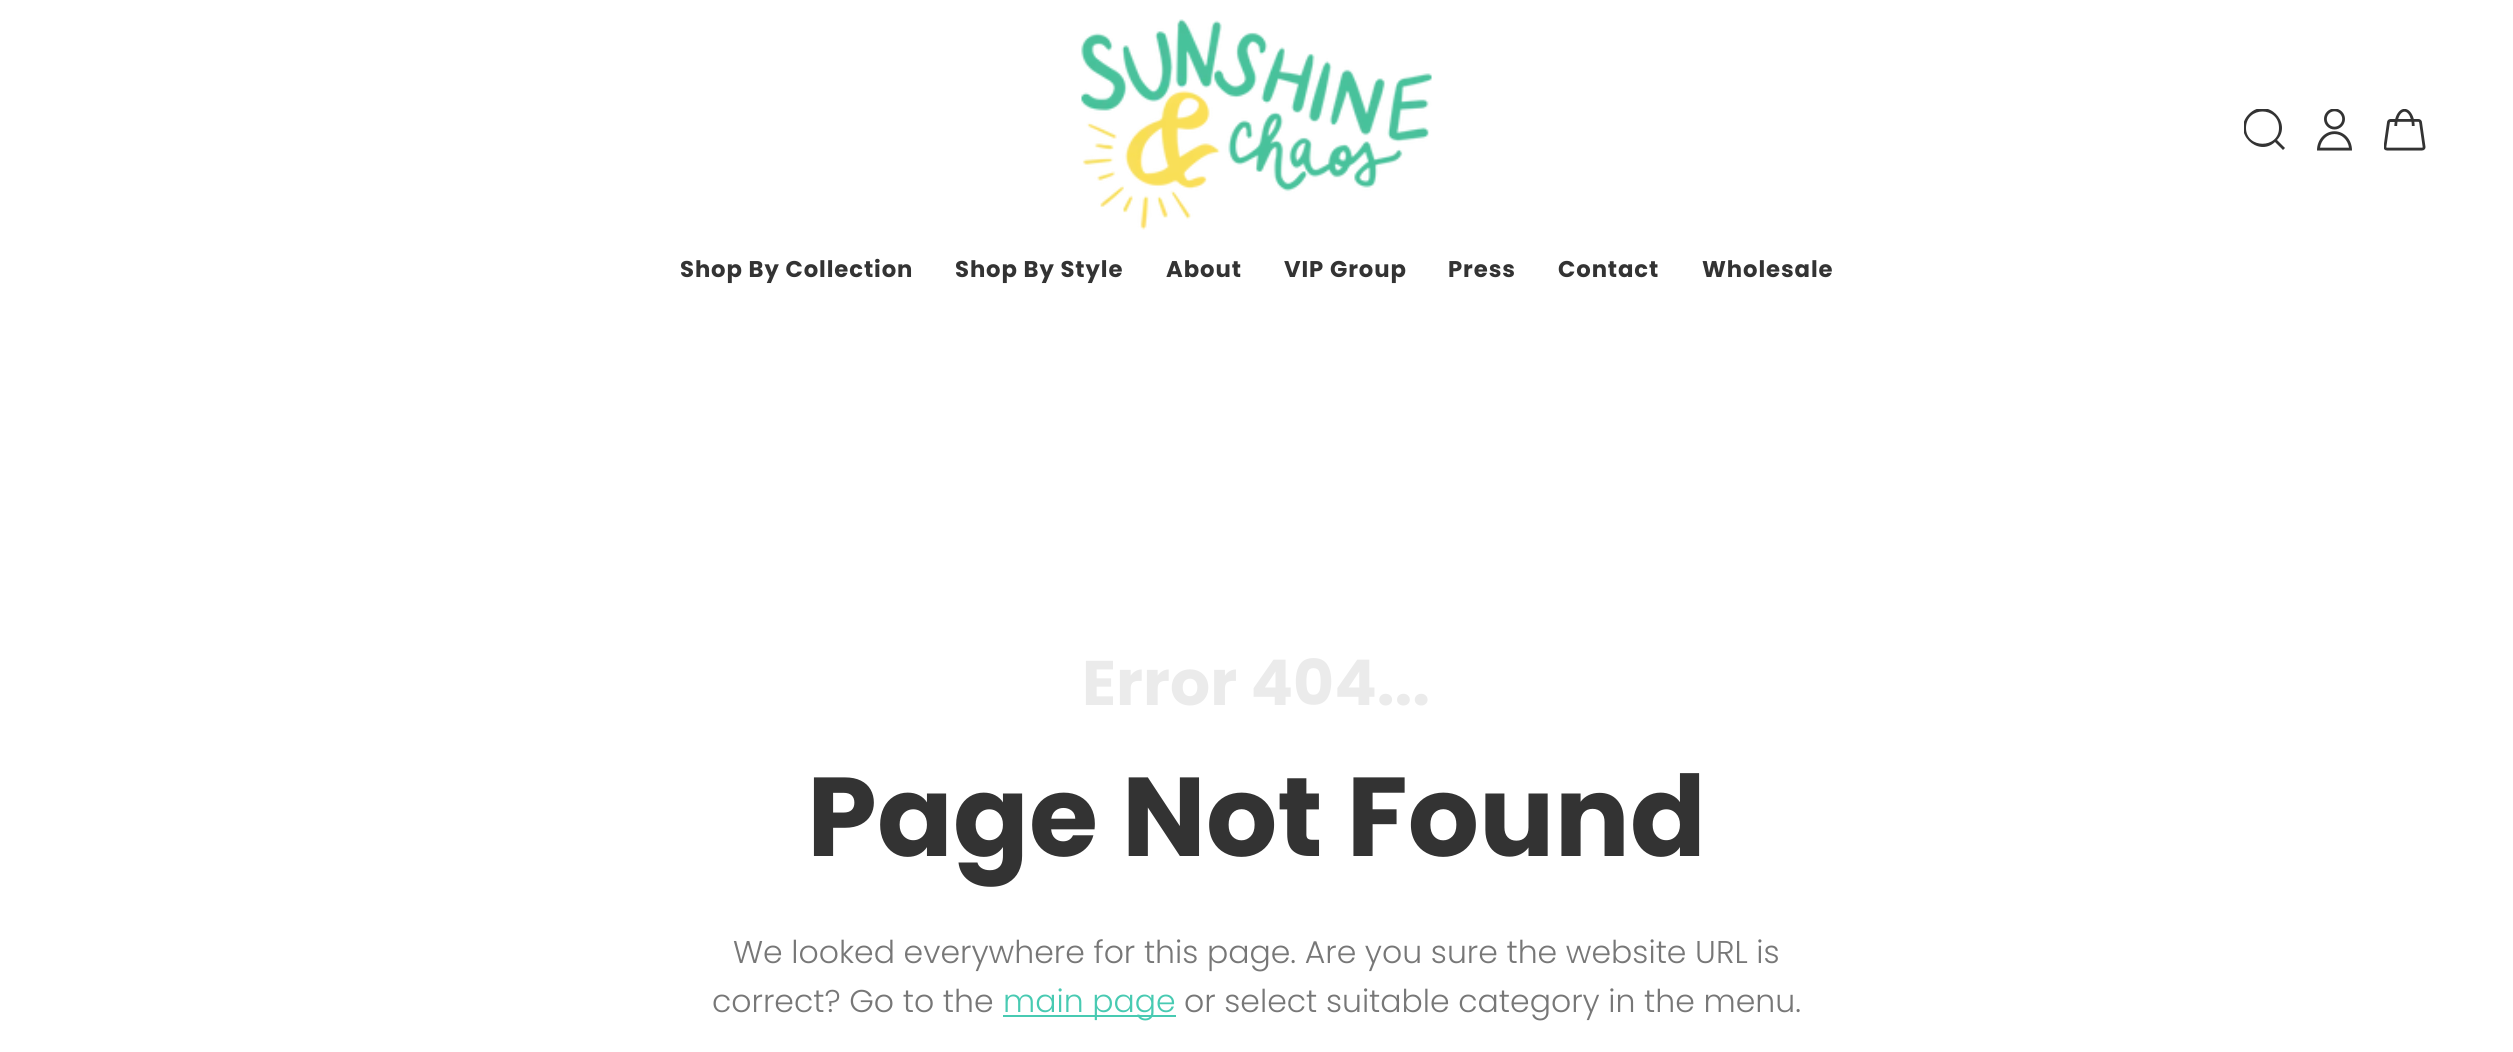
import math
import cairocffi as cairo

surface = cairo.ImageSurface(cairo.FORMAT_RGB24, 2513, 1052)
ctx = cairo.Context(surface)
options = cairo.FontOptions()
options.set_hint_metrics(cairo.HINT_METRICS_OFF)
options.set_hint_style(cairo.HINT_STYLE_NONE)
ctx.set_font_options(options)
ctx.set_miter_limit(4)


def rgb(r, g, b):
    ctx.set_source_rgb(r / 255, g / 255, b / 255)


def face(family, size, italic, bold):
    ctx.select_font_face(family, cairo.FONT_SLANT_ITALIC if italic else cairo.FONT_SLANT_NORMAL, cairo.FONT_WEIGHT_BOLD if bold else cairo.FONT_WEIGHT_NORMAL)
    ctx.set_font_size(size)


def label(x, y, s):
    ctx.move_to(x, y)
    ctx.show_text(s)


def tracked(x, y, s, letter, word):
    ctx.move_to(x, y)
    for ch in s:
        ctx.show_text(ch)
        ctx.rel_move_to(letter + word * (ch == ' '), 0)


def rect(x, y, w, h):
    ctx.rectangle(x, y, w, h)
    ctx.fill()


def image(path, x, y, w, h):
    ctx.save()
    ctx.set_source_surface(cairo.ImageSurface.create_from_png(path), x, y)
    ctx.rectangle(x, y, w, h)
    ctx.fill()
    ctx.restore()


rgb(255, 255, 255)
ctx.paint()
image('image0.png', 1081, 19, 351, 211)
ctx.save()
ctx.rectangle(2244, 109, 42, 42)
ctx.clip()
rgb(51, 51, 51)
ctx.new_path()
ctx.move_to(2285, 148)
ctx.line_to(2277, 140)
ctx.curve_to(2293, 123, 2267, 96, 2249, 114)
ctx.curve_to(2231, 132, 2258, 158, 2275, 142)
ctx.line_to(2283, 150)
ctx.close_path()
ctx.move_to(2246, 128)
ctx.curve_to(2246, 106, 2279, 106, 2279, 128)
ctx.curve_to(2279, 149, 2246, 149, 2246, 128)
ctx.close_path()
ctx.fill()
ctx.restore()
image('image1.png', 2317, 109, 35, 42)
image('image2.png', 2384, 109, 42, 42)
face('Poppins', 22.75, 0, 1)
rgb(51, 51, 51)
tracked(680, 277, 'Shop By Collection', 0.9, 0)
tracked(955, 277, 'Shop By Style', 0.9, 0)
tracked(1166, 277, 'About', 0.9, 0)
tracked(1284, 277, 'VIP Group', 0.9, 0)
tracked(1448, 277, 'Press', 0.9, 0)
tracked(1558, 277, 'Contact', 0.9, 0)
tracked(1702, 277, 'Wholesale', 0.9, 0)
face('Poppins', 63, 0, 1)
rgb(235, 235, 235)
label(1082, 705, 'Error 404...')
face('Poppins', 112, 0, 1)
rgb(51, 51, 51)
label(807, 856, 'Page Not Found')
face('Poppins Light', 31.5, 0, 0)
rgb(119, 119, 119)
label(733, 963, 'We looked everywhere for this page. Are you sure the website URL is')
label(712, 1012, 'correct? Go to the')
rgb(72, 202, 178)
label(1003, 1012, 'main page')
rect(1003, 1015, 173, 2)
rgb(119, 119, 119)
label(1184, 1012, 'or select suitable category in the menu.')
surface.write_to_png('render.png')
